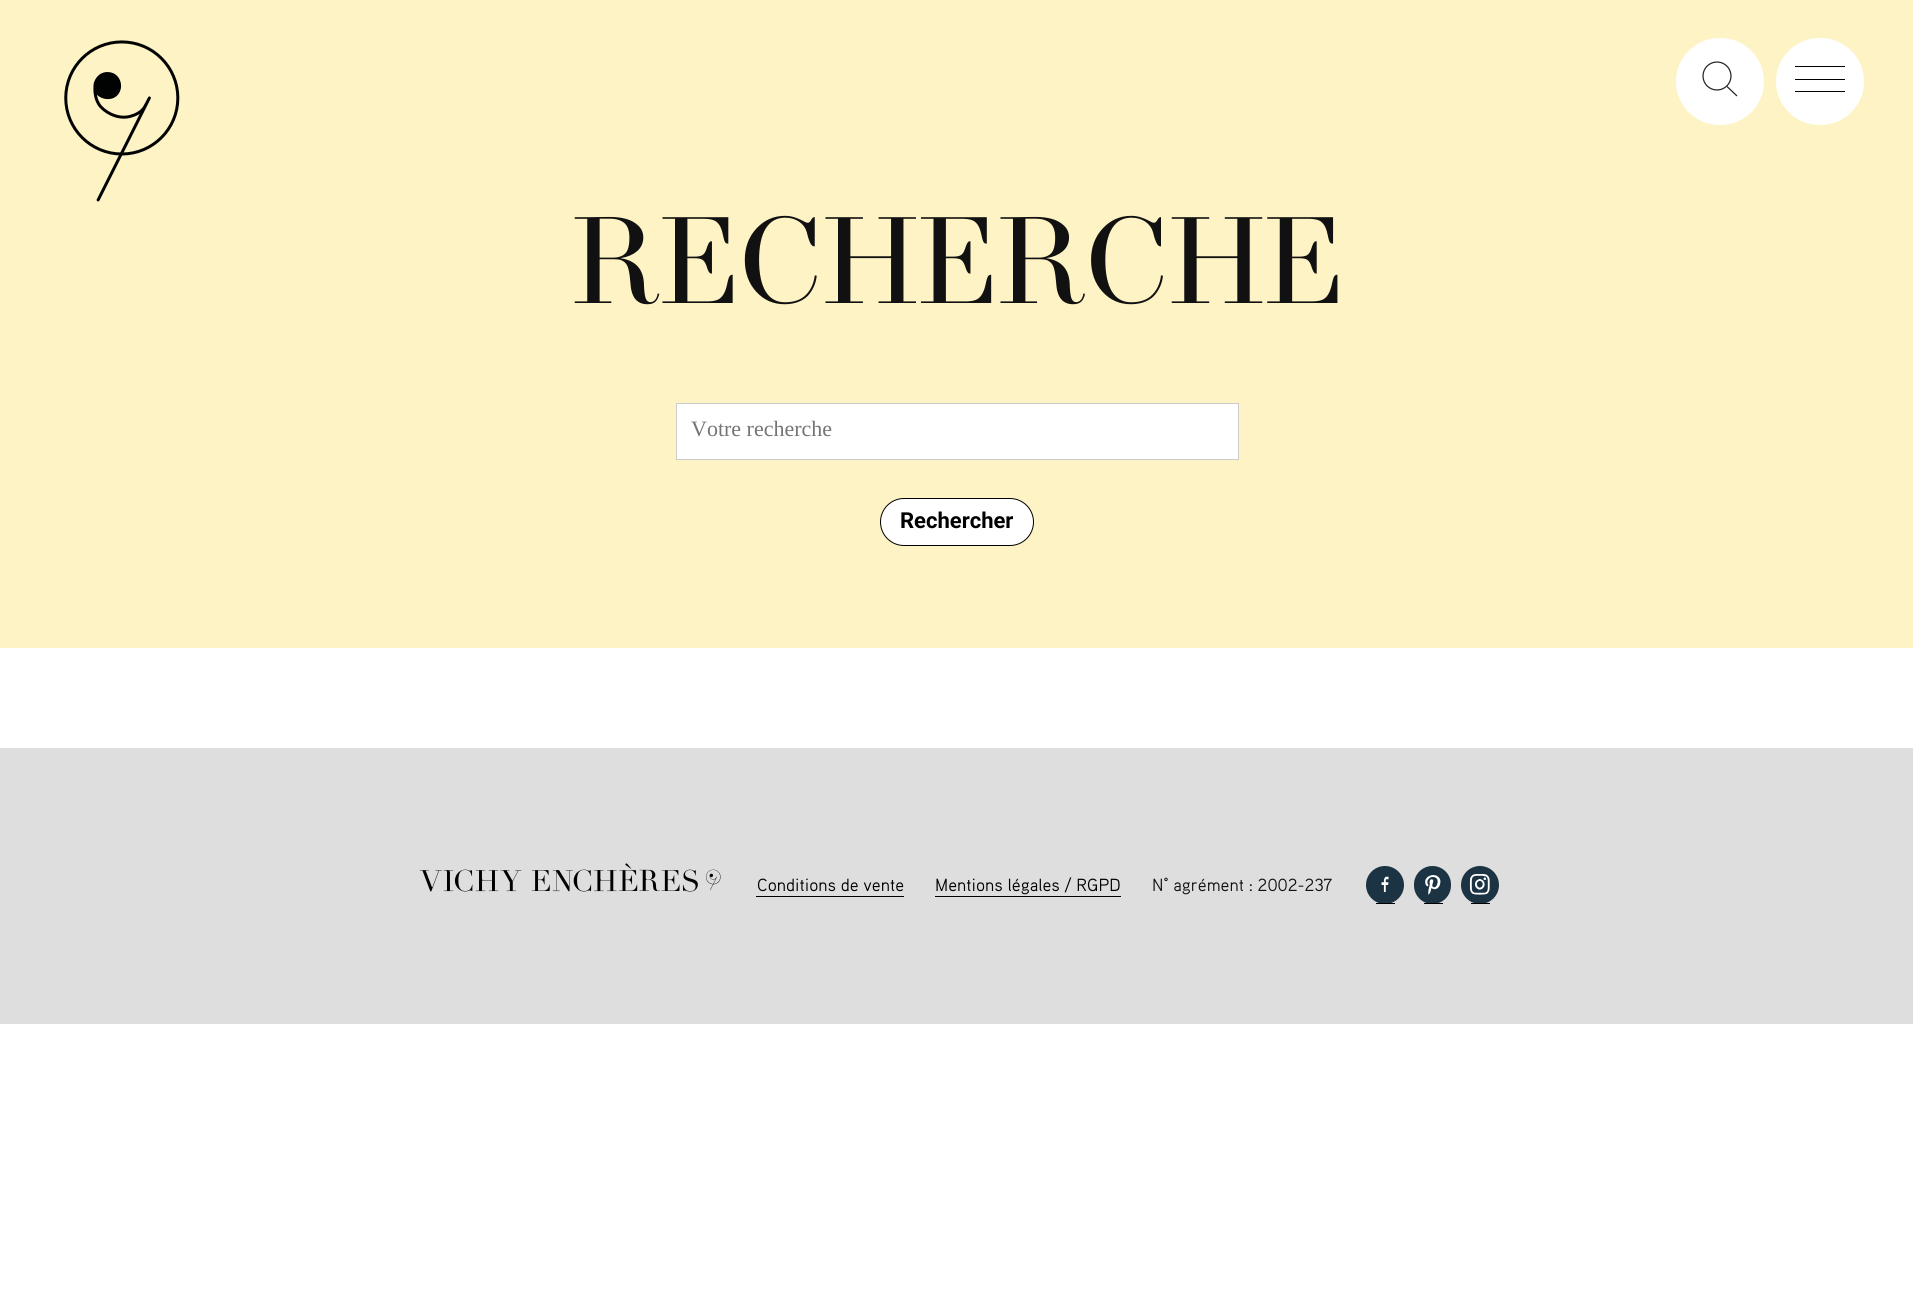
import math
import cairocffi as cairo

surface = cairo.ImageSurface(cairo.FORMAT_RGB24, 1913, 1293)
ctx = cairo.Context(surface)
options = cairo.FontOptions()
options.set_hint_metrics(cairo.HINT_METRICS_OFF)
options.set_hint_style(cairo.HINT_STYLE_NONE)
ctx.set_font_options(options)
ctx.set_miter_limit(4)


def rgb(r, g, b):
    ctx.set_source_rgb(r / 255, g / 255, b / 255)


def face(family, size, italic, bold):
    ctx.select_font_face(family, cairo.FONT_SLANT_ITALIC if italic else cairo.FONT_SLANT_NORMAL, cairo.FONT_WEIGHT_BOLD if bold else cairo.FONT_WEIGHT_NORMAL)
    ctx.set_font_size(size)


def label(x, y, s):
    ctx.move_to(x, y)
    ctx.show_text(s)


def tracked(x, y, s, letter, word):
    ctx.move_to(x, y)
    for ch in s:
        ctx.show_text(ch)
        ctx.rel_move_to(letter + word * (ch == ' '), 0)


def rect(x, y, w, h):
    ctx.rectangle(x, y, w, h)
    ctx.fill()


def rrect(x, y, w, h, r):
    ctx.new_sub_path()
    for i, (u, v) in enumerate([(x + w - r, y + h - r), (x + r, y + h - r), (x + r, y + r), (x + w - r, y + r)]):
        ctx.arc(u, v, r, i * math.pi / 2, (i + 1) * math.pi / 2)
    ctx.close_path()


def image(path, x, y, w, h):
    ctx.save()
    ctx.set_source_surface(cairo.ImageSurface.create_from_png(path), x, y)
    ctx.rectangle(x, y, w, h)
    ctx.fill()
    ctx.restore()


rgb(255, 255, 255)
ctx.paint()
rgb(254, 243, 197)
rect(0, 0, 1913, 648)
image('image0.png', 64, 40, 116, 162)
rgb(255, 255, 255)
rrect(1676, 38, 88, 87, 43.5)
ctx.fill()
ctx.new_path()
ctx.move_to(1727, 86.5)
ctx.line_to(1737, 96)
rgb(29, 29, 27)
ctx.set_line_width(1.2)
ctx.stroke()
ctx.arc(1717, 76, 14, 0, 2 * math.pi)
ctx.stroke()
rgb(255, 255, 255)
rrect(1776, 38, 88, 87, 43.5)
ctx.fill()
rgb(0, 0, 0)
rect(1795, 66, 50, 1)
rect(1795, 79, 50, 1)
rect(1795, 91, 50, 1)
face('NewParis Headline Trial', 124, 0, 0)
rgb(17, 17, 17)
tracked(571, 303, 'RECHERCHE', -2.5, 0)
rgb(255, 255, 255)
ctx.rectangle(676.5, 403.5, 562, 56)
ctx.fill_preserve()
rgb(204, 204, 204)
ctx.set_line_width(1)
ctx.stroke()
face('Liberation Serif', 22, 0, 0)
rgb(117, 117, 117)
label(691, 436, 'Votre recherche')
rgb(255, 255, 255)
rrect(880.5, 498.5, 153, 47, 23.5)
ctx.fill_preserve()
rgb(0, 0, 0)
ctx.stroke()
face('Roboto', 22, 0, 1)
label(900, 528, 'Rechercher')
rgb(222, 222, 222)
rect(0, 748, 1913, 276)
image('image1.png', 419, 863, 302, 29)
face('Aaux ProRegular', 17.6, 0, 0)
rgb(0, 0, 0)
label(757, 891, 'Conditions de vente')
rect(756, 896, 148, 1)
label(935, 891, 'Mentions légales / RGPD')
rect(935, 896, 186, 1)
rgb(17, 17, 17)
label(1152, 891, 'N° agrément : 2002-237')
rgb(28, 51, 67)
ctx.new_path()
ctx.arc(1385, 885, 19, 0, 2 * math.pi)
ctx.fill()
image('image2.png', 1381, 876, 8, 16)
rgb(0, 0, 0)
rect(1376, 903, 19, 1)
rgb(28, 51, 67)
rrect(1414, 866, 37, 38, 18.5)
ctx.fill()
image('image3.png', 1425, 875, 16, 20)
rgb(0, 0, 0)
rect(1424, 903, 19, 1)
rgb(28, 51, 67)
ctx.arc(1480, 885, 19, 0, 2 * math.pi)
ctx.fill()
image('image4.png', 1469, 874, 21, 21)
rgb(0, 0, 0)
rect(1471, 903, 19, 1)
surface.write_to_png('render.png')
